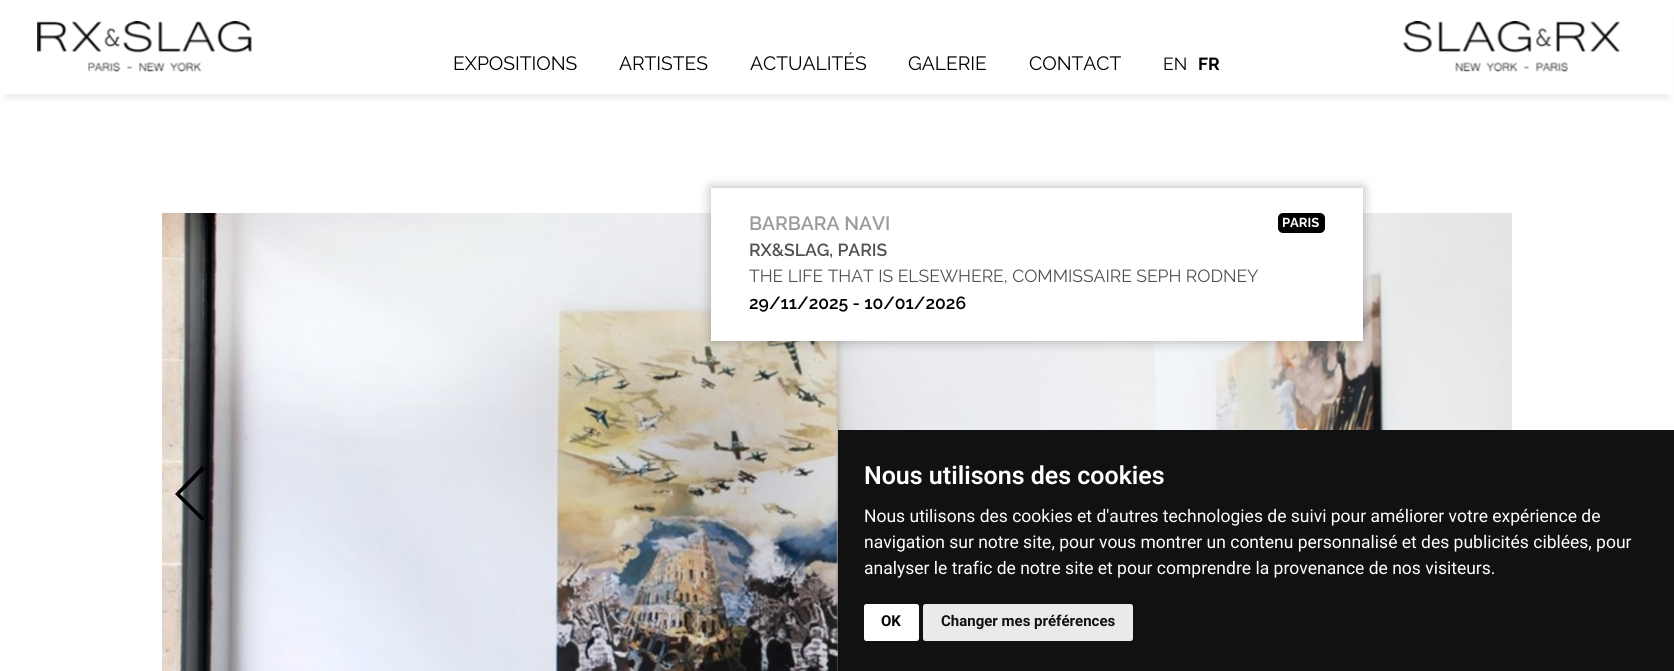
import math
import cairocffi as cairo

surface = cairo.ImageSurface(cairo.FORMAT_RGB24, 1674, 671)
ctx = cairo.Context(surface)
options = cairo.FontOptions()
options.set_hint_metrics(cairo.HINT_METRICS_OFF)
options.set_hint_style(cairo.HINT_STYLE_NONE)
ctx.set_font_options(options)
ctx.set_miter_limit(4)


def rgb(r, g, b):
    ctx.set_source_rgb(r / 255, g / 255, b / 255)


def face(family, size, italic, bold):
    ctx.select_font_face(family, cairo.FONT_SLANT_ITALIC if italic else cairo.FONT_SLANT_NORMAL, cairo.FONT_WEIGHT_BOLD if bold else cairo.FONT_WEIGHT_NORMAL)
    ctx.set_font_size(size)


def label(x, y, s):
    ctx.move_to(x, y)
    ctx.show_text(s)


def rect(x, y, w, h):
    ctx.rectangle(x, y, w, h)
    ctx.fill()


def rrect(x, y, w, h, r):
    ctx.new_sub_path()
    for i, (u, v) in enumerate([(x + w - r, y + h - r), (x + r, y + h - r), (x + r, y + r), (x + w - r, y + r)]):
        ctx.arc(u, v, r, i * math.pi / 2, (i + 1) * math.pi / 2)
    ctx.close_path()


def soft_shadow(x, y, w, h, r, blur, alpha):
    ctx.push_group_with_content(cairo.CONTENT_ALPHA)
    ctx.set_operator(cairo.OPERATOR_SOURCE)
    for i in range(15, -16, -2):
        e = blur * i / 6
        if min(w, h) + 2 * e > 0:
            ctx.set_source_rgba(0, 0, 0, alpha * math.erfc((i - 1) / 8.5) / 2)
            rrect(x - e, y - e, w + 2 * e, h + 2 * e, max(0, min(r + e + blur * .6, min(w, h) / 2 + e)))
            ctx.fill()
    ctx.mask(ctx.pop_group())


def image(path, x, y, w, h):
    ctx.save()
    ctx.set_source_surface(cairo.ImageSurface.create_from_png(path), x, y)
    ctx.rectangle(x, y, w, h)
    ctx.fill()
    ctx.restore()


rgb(255, 255, 255)
ctx.paint()
rgb(240, 240, 240)
soft_shadow(5, 15, 1665, 84, 0, 2.5, 1)
rgb(255, 255, 255)
rect(3, 13, 1669, 81)
image('image0.png', 37, 21, 215, 51)
face('Raleway', 19.25, 0, 0)
rgb(0, 0, 0)
label(453, 70, 'EXPOSITIONS')
label(619, 70, 'ARTISTES')
label(750, 70, 'ACTUALITÉS')
label(908, 70, 'GALERIE')
label(1029, 70, 'CONTACT')
face('Raleway', 17.5, 0, 0)
label(1163, 70, 'EN')
face('Raleway', 17.5, 0, 1)
label(1198, 70, 'FR')
image('image1.png', 1403, 21, 217, 51)
image('image2.png', 162, 213, 1350, 458)
rgb(0, 0, 0)
soft_shadow(711, 188, 652, 153, 0, 6, 0.3)
rgb(255, 255, 255)
rect(711, 188, 652, 153)
face('Raleway SemiBold', 19.25, 0, 0)
rgb(155, 155, 155)
label(749, 230, 'BARBARA NAVI')
face('Raleway SemiBold', 17.5, 0, 0)
rgb(81, 81, 81)
label(749, 256, 'RX&SLAG, PARIS')
face('Raleway', 17.5, 0, 0)
label(749, 282, 'THE LIFE THAT IS ELSEWHERE, COMMISSAIRE SEPH RODNEY')
face('Raleway SemiBold', 17.5, 0, 0)
rgb(0, 0, 0)
label(749, 309, '29/11/2025 - 10/01/2026')
rrect(1278, 213, 47, 20, 5)
ctx.fill()
face('Raleway', 13, 0, 1)
rgb(255, 255, 255)
label(1282, 227, 'PARIS')
rgb(0, 0, 0)
ctx.new_path()
ctx.move_to(175, 494)
ctx.line_to(202, 466)
ctx.line_to(205, 469)
ctx.line_to(180, 494)
ctx.line_to(205, 519)
ctx.line_to(202, 521)
ctx.close_path()
ctx.fill()
rgb(17, 17, 17)
rect(838, 430, 836, 241)
face('Roboto SemiBold', 25, 0, 0)
rgb(255, 255, 255)
label(864, 484, 'Nous utilisons des cookies')
face('Roboto', 17.5, 0, 0)
label(864, 522, 'Nous utilisons des cookies et d\'autres technologies de suivi pour améliorer votre expérience de')
label(864, 548, 'navigation sur notre site, pour vous montrer un contenu personnalisé et des publicités ciblées, pour')
label(864, 574, 'analyser le trafic de notre site et pour comprendre la provenance de nos visiteurs.')
rrect(864, 604, 55, 37, 2.5)
ctx.fill()
face('Roboto', 15, 0, 1)
rgb(0, 0, 0)
label(881, 626, 'OK')
rgb(234, 234, 234)
rrect(923, 604, 210, 37, 2.5)
ctx.fill()
rgb(17, 17, 17)
label(941, 626, 'Changer mes préférences')
surface.write_to_png('render.png')
